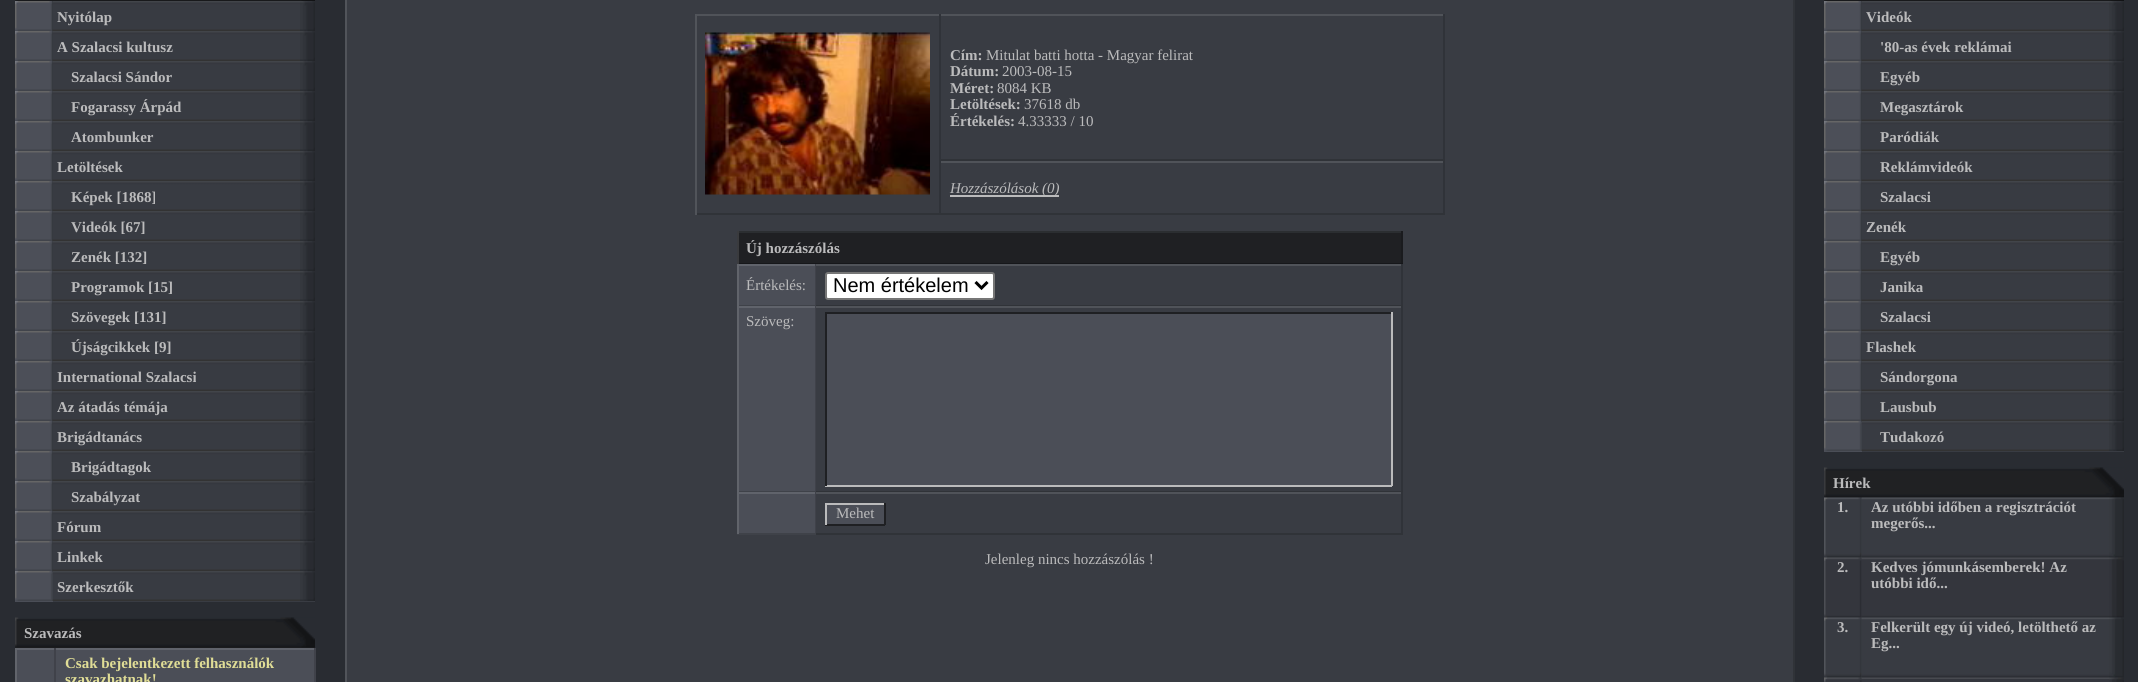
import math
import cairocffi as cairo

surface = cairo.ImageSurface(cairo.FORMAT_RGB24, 2138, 682)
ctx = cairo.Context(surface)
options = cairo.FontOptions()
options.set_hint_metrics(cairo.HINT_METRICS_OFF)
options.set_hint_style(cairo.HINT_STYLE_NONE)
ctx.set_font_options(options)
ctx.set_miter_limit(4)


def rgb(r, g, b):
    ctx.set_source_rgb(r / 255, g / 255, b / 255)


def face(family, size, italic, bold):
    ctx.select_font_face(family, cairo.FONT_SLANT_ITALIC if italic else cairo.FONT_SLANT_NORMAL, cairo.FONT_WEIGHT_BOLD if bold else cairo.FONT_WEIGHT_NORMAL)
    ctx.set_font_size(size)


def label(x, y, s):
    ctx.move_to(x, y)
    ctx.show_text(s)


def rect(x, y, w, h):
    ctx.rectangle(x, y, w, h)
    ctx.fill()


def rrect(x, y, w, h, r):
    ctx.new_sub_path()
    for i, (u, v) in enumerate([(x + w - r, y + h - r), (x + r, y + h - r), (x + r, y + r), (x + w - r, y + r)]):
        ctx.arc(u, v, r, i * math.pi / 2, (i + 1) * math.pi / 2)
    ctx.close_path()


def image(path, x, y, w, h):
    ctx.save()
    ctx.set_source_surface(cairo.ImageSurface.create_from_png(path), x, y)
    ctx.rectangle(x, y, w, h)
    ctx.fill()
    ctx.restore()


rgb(41, 44, 50)
ctx.paint()
rgb(31, 32, 35)
rect(15, 0, 38, 2)
image('image0.png', 16, 0, 299, 1)
image('image1.png', 15, 1, 38, 30)
image('image2.png', 52, 1, 248, 30)
face('Liberation Serif', 15, 0, 1)
rgb(187, 187, 188)
label(57, 22, 'Nyitólap')
image('image3.png', 300, 1, 15, 30)
image('image4.png', 15, 31, 38, 30)
image('image5.png', 52, 31, 248, 30)
label(57, 52, 'A Szalacsi kultusz')
image('image3.png', 300, 31, 15, 30)
image('image4.png', 15, 61, 38, 30)
image('image5.png', 52, 61, 248, 30)
label(71, 82, 'Szalacsi Sándor')
image('image3.png', 300, 61, 15, 30)
image('image4.png', 15, 91, 38, 30)
image('image5.png', 52, 91, 248, 30)
label(71, 112, 'Fogarassy Árpád')
image('image3.png', 300, 91, 15, 30)
image('image4.png', 15, 121, 38, 30)
image('image6.png', 52, 121, 248, 30)
label(71, 142, 'Atombunker')
image('image3.png', 300, 121, 15, 30)
image('image4.png', 15, 151, 38, 30)
image('image7.png', 52, 151, 248, 30)
label(57, 172, 'Letöltések')
image('image3.png', 300, 151, 15, 30)
image('image4.png', 15, 181, 38, 30)
image('image8.png', 52, 181, 248, 30)
label(71, 202, 'Képek [1868]')
image('image3.png', 300, 181, 15, 30)
image('image4.png', 15, 211, 38, 30)
image('image9.png', 52, 211, 248, 30)
label(71, 232, 'Videók [67]')
image('image3.png', 300, 211, 15, 30)
image('image4.png', 15, 241, 38, 30)
image('image5.png', 52, 241, 248, 30)
label(71, 262, 'Zenék [132]')
image('image3.png', 300, 241, 15, 30)
image('image4.png', 15, 271, 38, 30)
image('image5.png', 52, 271, 248, 30)
label(71, 292, 'Programok [15]')
image('image3.png', 300, 271, 15, 30)
image('image4.png', 15, 301, 38, 30)
image('image5.png', 52, 301, 248, 30)
label(71, 322, 'Szövegek [131]')
image('image3.png', 300, 301, 15, 30)
image('image4.png', 15, 331, 38, 30)
image('image10.png', 52, 331, 248, 30)
label(71, 352, 'Újságcikkek [9]')
image('image3.png', 300, 331, 15, 30)
image('image4.png', 15, 361, 38, 30)
image('image5.png', 52, 361, 248, 30)
label(57, 382, 'International Szalacsi')
image('image3.png', 300, 361, 15, 30)
image('image4.png', 15, 391, 38, 30)
image('image5.png', 52, 391, 248, 30)
label(57, 412, 'Az átadás témája')
image('image3.png', 300, 391, 15, 30)
image('image4.png', 15, 421, 38, 30)
image('image5.png', 52, 421, 248, 30)
label(57, 442, 'Brigádtanács')
image('image3.png', 300, 421, 15, 30)
image('image4.png', 15, 451, 38, 30)
image('image11.png', 52, 451, 248, 30)
label(71, 472, 'Brigádtagok')
image('image3.png', 300, 451, 15, 30)
image('image4.png', 15, 481, 38, 30)
image('image12.png', 52, 481, 248, 30)
label(71, 502, 'Szabályzat')
image('image3.png', 300, 481, 15, 30)
image('image4.png', 15, 511, 38, 30)
image('image12.png', 52, 511, 248, 30)
label(57, 532, 'Fórum')
image('image3.png', 300, 511, 15, 30)
image('image4.png', 15, 541, 38, 30)
image('image5.png', 52, 541, 248, 30)
label(57, 562, 'Linkek')
image('image3.png', 300, 541, 15, 30)
rgb(75, 78, 87)
rect(15, 572, 38, 30)
image('image4.png', 15, 571, 38, 30)
rgb(57, 60, 67)
rect(53, 601, 262, 1)
image('image11.png', 52, 571, 248, 30)
rgb(187, 187, 188)
label(57, 592, 'Szerkesztők')
image('image3.png', 300, 571, 15, 30)
rgb(31, 32, 35)
rect(15, 647, 300, 1)
image('image13.png', 15, 617, 300, 31)
rgb(187, 187, 188)
label(24, 638, 'Szavazás')
rgb(75, 78, 87)
rect(17, 650, 37, 32)
rgb(96, 99, 107)
rect(15, 648, 300, 2)
rgb(64, 66, 74)
rect(54, 648, 2, 34)
rgb(97, 100, 107)
rect(15, 648, 2, 34)
rgb(75, 78, 87)
rect(56, 650, 258, 32)
rgb(64, 66, 74)
rect(314, 648, 2, 34)
rgb(224, 221, 150)
label(65, 668, 'Csak bejelentkezett felhasználók')
label(65, 684, 'szavazhatnak!')
rgb(57, 60, 67)
rect(347, 0, 1446, 682)
rgb(48, 51, 56)
rect(1793, 0, 2, 682)
rgb(81, 84, 90)
rect(345, 0, 2, 682)
rgb(80, 83, 89)
rect(695, 14, 750, 2)
rgb(48, 51, 57)
rect(939, 14, 2, 201)
rgb(48, 51, 56)
rect(695, 213, 246, 2)
rgb(81, 84, 90)
rect(695, 14, 2, 201)
image('image14.png', 705, 32, 225, 163)
rgb(48, 51, 57)
rect(1443, 14, 2, 147)
rgb(48, 51, 56)
rect(941, 159, 504, 2)
rgb(187, 187, 188)
label(950, 60, 'Cím:')
face('Liberation Serif', 15, 0, 0)
label(986, 60, 'Mitulat batti hotta - Magyar felirat')
face('Liberation Serif', 15, 0, 1)
label(950, 76, 'Dátum:')
face('Liberation Serif', 15, 0, 0)
label(1002, 76, '2003-08-15')
face('Liberation Serif', 15, 0, 1)
label(950, 93, 'Méret:')
face('Liberation Serif', 15, 0, 0)
label(997, 93, '8084 KB')
face('Liberation Serif', 15, 0, 1)
label(950, 109, 'Letöltések:')
face('Liberation Serif', 15, 0, 0)
label(1024, 109, '37618 db')
face('Liberation Serif', 15, 0, 1)
label(950, 126, 'Értékelés:')
face('Liberation Serif', 15, 0, 0)
label(1018, 126, '4.33333 / 10')
rgb(80, 83, 89)
rect(941, 161, 504, 2)
rgb(48, 51, 57)
rect(1443, 161, 2, 54)
rgb(48, 51, 56)
rect(941, 213, 504, 2)
rgb(187, 187, 188)
rect(950, 195, 109, 2)
face('Liberation Serif', 15, 1, 0)
label(950, 193, 'Hozzászólások (0)')
rgb(31, 32, 35)
rect(739, 233, 662, 30)
rgb(43, 46, 49)
rect(737, 231, 666, 2)
rgb(26, 27, 30)
rect(1401, 231, 2, 33)
rgb(22, 23, 26)
rect(737, 263, 666, 1)
rgb(58, 59, 62)
rect(737, 231, 2, 33)
face('Liberation Serif', 15, 0, 1)
rgb(187, 187, 188)
label(746, 253, 'Új hozzászólás')
rgb(75, 78, 87)
rect(739, 266, 76, 39)
rgb(96, 99, 107)
rect(737, 264, 79, 2)
rgb(64, 66, 74)
rect(815, 264, 1, 42)
rgb(63, 66, 73)
rect(737, 305, 79, 1)
rgb(97, 100, 107)
rect(737, 264, 2, 42)
face('Liberation Serif', 15, 0, 0)
rgb(187, 187, 188)
label(746, 290, 'Értékelés:')
rgb(80, 83, 89)
rect(816, 264, 587, 2)
rgb(48, 51, 57)
rect(1401, 264, 2, 42)
rgb(48, 51, 56)
rect(816, 305, 587, 1)
rgb(255, 255, 255)
rrect(826, 273, 168, 26, 2)
ctx.fill_preserve()
rgb(118, 118, 118)
ctx.stroke()
ctx.new_path()
ctx.move_to(975.5, 282)
ctx.line_to(981.5, 288)
ctx.line_to(987.5, 282)
rgb(0, 0, 0)
ctx.set_line_width(3)
ctx.stroke()
face('Liberation Sans', 20, 0, 0)
label(833, 292, 'Nem értékelem')
rgb(75, 78, 87)
rect(739, 308, 76, 183)
rgb(96, 99, 107)
rect(737, 306, 79, 2)
rgb(64, 66, 74)
rect(815, 306, 1, 186)
rgb(63, 66, 73)
rect(737, 491, 79, 1)
rgb(97, 100, 107)
rect(737, 306, 2, 186)
face('Liberation Serif', 15, 0, 0)
rgb(187, 187, 188)
label(746, 326, 'Szöveg:')
rgb(80, 83, 89)
rect(816, 306, 587, 2)
rgb(48, 51, 57)
rect(1401, 306, 2, 186)
rgb(48, 51, 56)
rect(816, 491, 587, 1)
rgb(75, 78, 87)
rect(827, 314, 564, 171)
rgb(31, 32, 35)
rect(825, 312, 567, 2)
rgb(187, 187, 188)
rect(1391, 312, 2, 174)
rect(825, 485, 567, 2)
rgb(31, 32, 35)
rect(825, 312, 2, 174)
rgb(75, 78, 87)
rect(739, 494, 76, 39)
rgb(96, 99, 107)
rect(737, 492, 79, 2)
rgb(64, 66, 74)
rect(815, 492, 1, 42)
rgb(63, 66, 73)
rect(737, 533, 79, 2)
rgb(97, 100, 107)
rect(737, 492, 2, 42)
rgb(80, 83, 89)
rect(816, 492, 587, 2)
rgb(48, 51, 57)
rect(1401, 492, 2, 42)
rgb(48, 51, 56)
rect(816, 533, 587, 2)
rgb(75, 78, 87)
rect(827, 505, 57, 19)
rgb(187, 187, 188)
rect(825, 503, 60, 2)
rgb(31, 32, 35)
rect(884, 503, 2, 22)
rect(825, 524, 60, 2)
rgb(187, 187, 188)
rect(825, 503, 2, 22)
label(836, 518, 'Mehet')
label(985, 564, 'Jelenleg nincs hozzászólás !')
rgb(31, 32, 35)
rect(1824, 0, 38, 2)
image('image0.png', 1825, 0, 299, 1)
image('image15.png', 1824, 1, 38, 30)
image('image2.png', 1861, 1, 248, 30)
face('Liberation Serif', 15, 0, 1)
rgb(187, 187, 188)
label(1866, 22, 'Videók')
image('image3.png', 2109, 1, 15, 30)
image('image16.png', 1824, 31, 38, 30)
image('image5.png', 1861, 31, 248, 30)
label(1880, 52, '\'80-as évek reklámai')
image('image3.png', 2109, 31, 15, 30)
image('image16.png', 1824, 61, 38, 30)
image('image5.png', 1861, 61, 248, 30)
label(1880, 82, 'Egyéb')
image('image3.png', 2109, 61, 15, 30)
image('image16.png', 1824, 91, 38, 30)
image('image5.png', 1861, 91, 248, 30)
label(1880, 112, 'Megasztárok')
image('image3.png', 2109, 91, 15, 30)
image('image16.png', 1824, 121, 38, 30)
image('image17.png', 1861, 121, 248, 30)
label(1880, 142, 'Paródiák')
image('image3.png', 2109, 121, 15, 30)
image('image16.png', 1824, 151, 38, 30)
image('image18.png', 1861, 151, 248, 30)
label(1880, 172, 'Reklámvideók')
image('image3.png', 2109, 151, 15, 30)
image('image16.png', 1824, 181, 38, 30)
image('image19.png', 1861, 181, 248, 30)
label(1880, 202, 'Szalacsi')
image('image3.png', 2109, 181, 15, 30)
image('image16.png', 1824, 211, 38, 30)
image('image20.png', 1861, 211, 248, 30)
label(1866, 232, 'Zenék')
image('image3.png', 2109, 211, 15, 30)
image('image16.png', 1824, 241, 38, 30)
image('image5.png', 1861, 241, 248, 30)
label(1880, 262, 'Egyéb')
image('image3.png', 2109, 241, 15, 30)
image('image16.png', 1824, 271, 38, 30)
image('image5.png', 1861, 271, 248, 30)
label(1880, 292, 'Janika')
image('image3.png', 2109, 271, 15, 30)
image('image16.png', 1824, 301, 38, 30)
image('image5.png', 1861, 301, 248, 30)
label(1880, 322, 'Szalacsi')
image('image3.png', 2109, 301, 15, 30)
image('image16.png', 1824, 331, 38, 30)
image('image21.png', 1861, 331, 248, 30)
label(1866, 352, 'Flashek')
image('image3.png', 2109, 331, 15, 30)
image('image16.png', 1824, 361, 38, 30)
image('image22.png', 1861, 361, 248, 30)
label(1880, 382, 'Sándorgona')
image('image3.png', 2109, 361, 15, 30)
image('image16.png', 1824, 391, 38, 30)
image('image5.png', 1861, 391, 248, 30)
label(1880, 412, 'Lausbub')
image('image3.png', 2109, 391, 15, 30)
rgb(75, 78, 87)
rect(1824, 422, 38, 30)
image('image16.png', 1824, 421, 38, 30)
rgb(57, 60, 67)
rect(1862, 451, 262, 1)
image('image5.png', 1861, 421, 248, 30)
rgb(187, 187, 188)
label(1880, 442, 'Tudakozó')
image('image3.png', 2109, 421, 15, 30)
image('image23.png', 1824, 467, 300, 31)
label(1833, 488, 'Hírek')
rgb(57, 60, 67)
rect(1824, 498, 38, 60)
image('image24.png', 1824, 497, 38, 61)
rgb(187, 187, 188)
label(1837, 512, '1.')
image('image25.png', 1861, 497, 248, 61)
label(1871, 512, 'Az utóbbi időben a regisztrációt')
label(1871, 528, 'megerős...')
image('image26.png', 2109, 497, 15, 61)
rgb(52, 54, 61)
rect(1824, 558, 38, 60)
image('image27.png', 1824, 557, 38, 61)
rgb(187, 187, 188)
label(1837, 572, '2.')
image('image28.png', 1861, 557, 248, 61)
label(1871, 572, 'Kedves jómunkásemberek! Az')
label(1871, 588, 'utóbbi idő...')
image('image29.png', 2109, 557, 15, 61)
rgb(57, 60, 67)
rect(1824, 618, 38, 60)
image('image30.png', 1824, 617, 38, 61)
rgb(187, 187, 188)
label(1837, 632, '3.')
image('image31.png', 1861, 617, 248, 61)
label(1871, 632, 'Felkerült egy új videó, letölthető az')
label(1871, 648, 'Eg...')
image('image32.png', 2109, 617, 15, 61)
rgb(52, 54, 61)
rect(1861, 678, 1, 4)
image('image33.png', 1824, 677, 38, 5)
rect(1862, 679, 247, 3)
image('image34.png', 1861, 677, 248, 2)
image('image35.png', 2109, 677, 15, 5)
surface.write_to_png('render.png')
